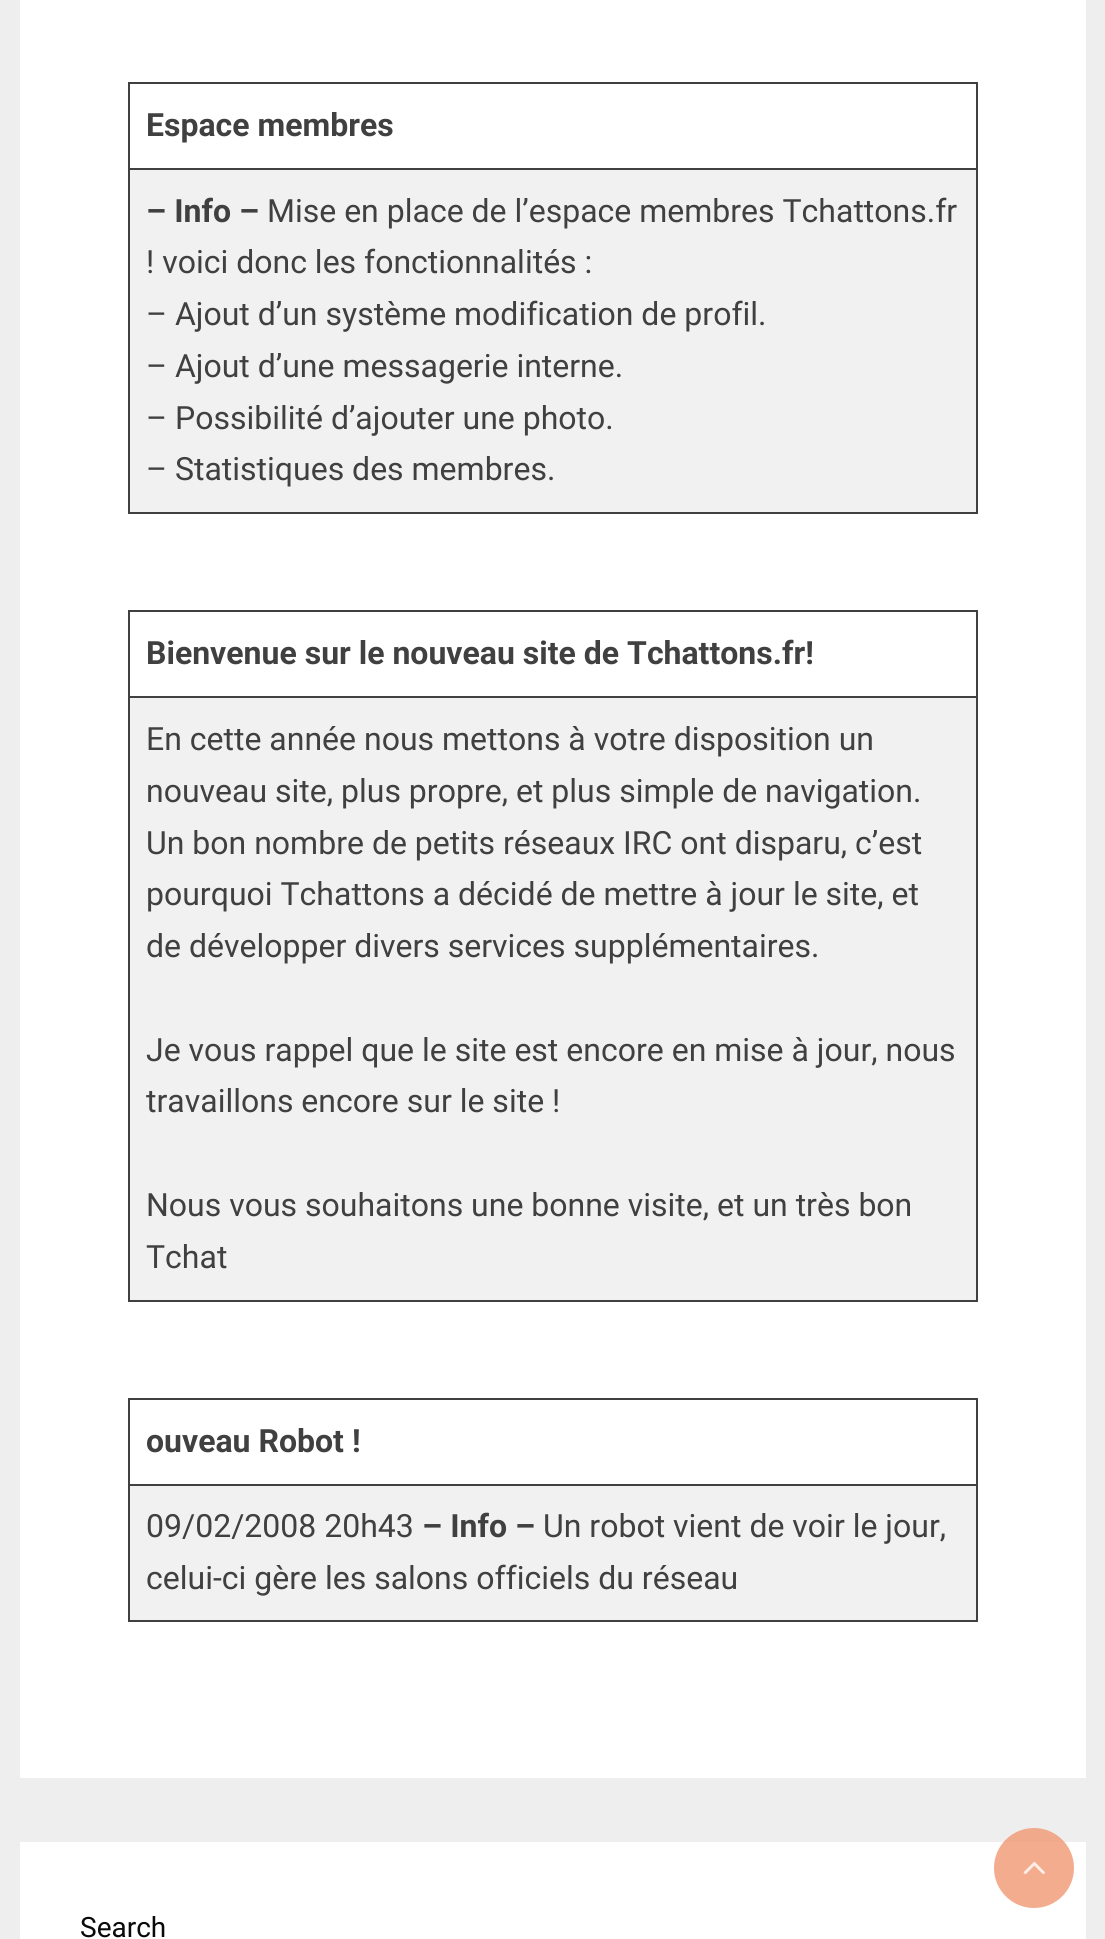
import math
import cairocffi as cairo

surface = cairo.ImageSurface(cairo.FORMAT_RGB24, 1105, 1939)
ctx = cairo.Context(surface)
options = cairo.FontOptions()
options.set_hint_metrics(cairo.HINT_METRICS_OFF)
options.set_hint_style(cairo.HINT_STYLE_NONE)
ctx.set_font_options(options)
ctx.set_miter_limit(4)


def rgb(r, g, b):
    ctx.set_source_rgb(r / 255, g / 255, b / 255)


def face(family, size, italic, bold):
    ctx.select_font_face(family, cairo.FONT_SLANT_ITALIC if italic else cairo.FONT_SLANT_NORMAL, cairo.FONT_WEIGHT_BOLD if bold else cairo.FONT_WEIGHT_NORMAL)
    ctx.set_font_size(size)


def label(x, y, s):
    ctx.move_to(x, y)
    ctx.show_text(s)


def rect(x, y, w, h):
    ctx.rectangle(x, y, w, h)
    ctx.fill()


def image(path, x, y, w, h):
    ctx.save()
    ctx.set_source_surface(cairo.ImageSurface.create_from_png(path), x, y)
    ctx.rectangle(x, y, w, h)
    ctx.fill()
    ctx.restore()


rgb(238, 238, 238)
ctx.paint()
rgb(255, 255, 255)
rect(20, 0, 1066, 1778)
rgb(64, 64, 64)
rect(128, 82, 850, 2)
rect(128, 168, 850, 2)
rect(976, 168, 2, 346)
rect(976, 82, 2, 88)
rect(128, 512, 850, 2)
rect(128, 168, 2, 346)
rect(128, 82, 2, 88)
face('Roboto', 32, 0, 1)
label(146, 136, 'Espace membres')
rgb(241, 241, 241)
rect(130, 170, 846, 342)
rgb(64, 64, 64)
label(146, 222, '– Info –')
face('Roboto', 32, 0, 0)
label(267, 222, 'Mise en place de l’espace membres Tchattons.fr')
label(146, 273, '! voici donc les fonctionnalités :')
label(146, 325, '– Ajout d’un système modification de profil.')
label(146, 377, '– Ajout d’une messagerie interne.')
label(146, 429, '– Possibilité d’ajouter une photo.')
label(146, 480, '– Statistiques des membres.')
rect(128, 610, 850, 2)
rect(128, 696, 850, 2)
rect(976, 696, 2, 606)
rect(976, 610, 2, 88)
rect(128, 1300, 850, 2)
rect(128, 696, 2, 606)
rect(128, 610, 2, 88)
face('Roboto', 32, 0, 1)
label(146, 664, 'Bienvenue sur le nouveau site de Tchattons.fr!')
rgb(241, 241, 241)
rect(130, 698, 846, 602)
face('Roboto', 32, 0, 0)
rgb(64, 64, 64)
label(146, 750, 'En cette année nous mettons à votre disposition un')
label(146, 802, 'nouveau site, plus propre, et plus simple de navigation.')
label(146, 854, 'Un bon nombre de petits réseaux IRC ont disparu, c’est')
label(146, 905, 'pourquoi Tchattons a décidé de mettre à jour le site, et')
label(146, 957, 'de développer divers services supplémentaires.')
label(146, 1061, 'Je vous rappel que le site est encore en mise à jour, nous')
label(146, 1112, 'travaillons encore sur le site !')
label(146, 1216, 'Nous vous souhaitons une bonne visite, et un très bon')
label(146, 1268, 'Tchat')
rect(128, 1398, 850, 2)
rect(128, 1484, 850, 2)
rect(976, 1484, 2, 138)
rect(976, 1398, 2, 88)
rect(128, 1620, 850, 2)
rect(128, 1484, 2, 138)
rect(128, 1398, 2, 88)
face('Roboto', 32, 0, 1)
label(146, 1452, 'ouveau Robot !')
rgb(241, 241, 241)
rect(130, 1486, 846, 134)
face('Roboto', 32, 0, 0)
rgb(64, 64, 64)
label(146, 1537, '09/02/2008 20h43')
face('Roboto', 32, 0, 1)
label(422, 1537, '– Info –')
face('Roboto', 32, 0, 0)
label(543, 1537, 'Un robot vient de voir le jour,')
label(146, 1589, 'celui-ci gère les salons officiels du réseau')
rgb(255, 255, 255)
rect(20, 1842, 1066, 97)
face('Roboto', 28, 0, 0)
rgb(10, 10, 10)
label(80, 1937, 'Search')
ctx.set_source_rgba(0.945, 0.592, 0.447, 0.8)
ctx.new_path()
ctx.arc(1034, 1868, 40, 0, 2 * math.pi)
ctx.fill()
image('image0.png', 1023, 1861, 22, 14)
surface.write_to_png('render.png')
